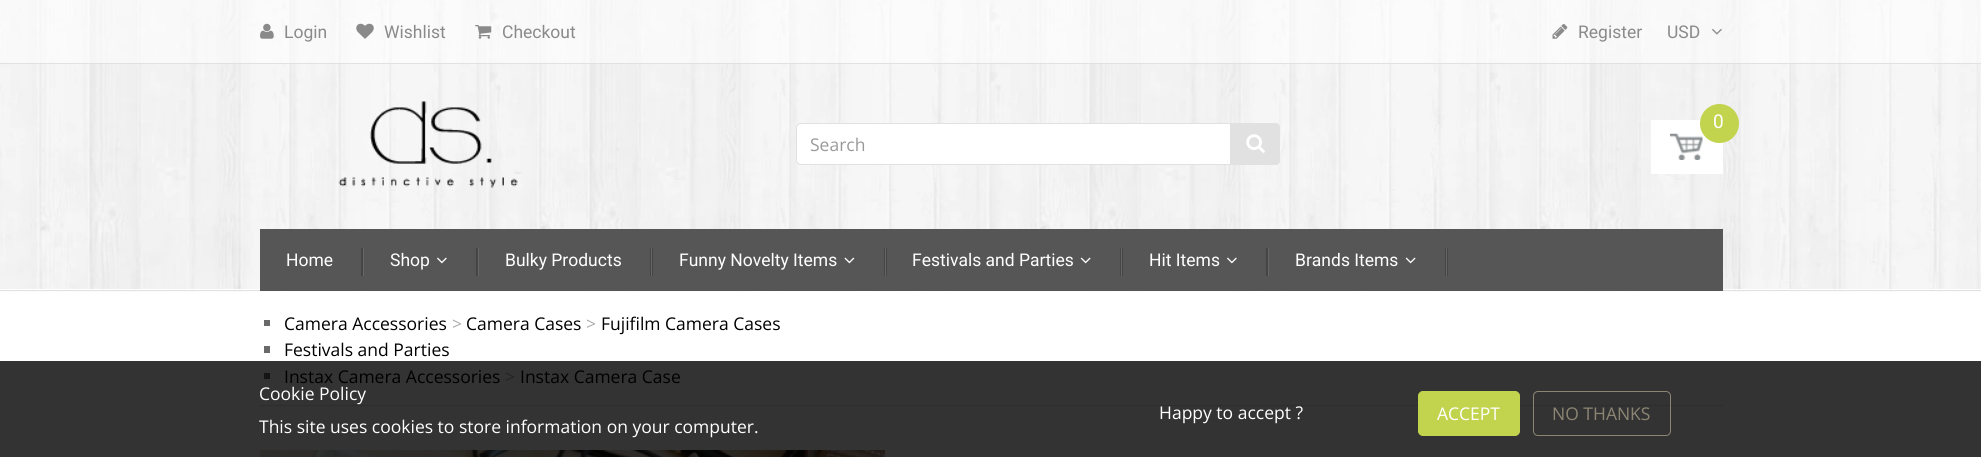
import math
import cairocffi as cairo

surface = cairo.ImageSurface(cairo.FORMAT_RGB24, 1981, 457)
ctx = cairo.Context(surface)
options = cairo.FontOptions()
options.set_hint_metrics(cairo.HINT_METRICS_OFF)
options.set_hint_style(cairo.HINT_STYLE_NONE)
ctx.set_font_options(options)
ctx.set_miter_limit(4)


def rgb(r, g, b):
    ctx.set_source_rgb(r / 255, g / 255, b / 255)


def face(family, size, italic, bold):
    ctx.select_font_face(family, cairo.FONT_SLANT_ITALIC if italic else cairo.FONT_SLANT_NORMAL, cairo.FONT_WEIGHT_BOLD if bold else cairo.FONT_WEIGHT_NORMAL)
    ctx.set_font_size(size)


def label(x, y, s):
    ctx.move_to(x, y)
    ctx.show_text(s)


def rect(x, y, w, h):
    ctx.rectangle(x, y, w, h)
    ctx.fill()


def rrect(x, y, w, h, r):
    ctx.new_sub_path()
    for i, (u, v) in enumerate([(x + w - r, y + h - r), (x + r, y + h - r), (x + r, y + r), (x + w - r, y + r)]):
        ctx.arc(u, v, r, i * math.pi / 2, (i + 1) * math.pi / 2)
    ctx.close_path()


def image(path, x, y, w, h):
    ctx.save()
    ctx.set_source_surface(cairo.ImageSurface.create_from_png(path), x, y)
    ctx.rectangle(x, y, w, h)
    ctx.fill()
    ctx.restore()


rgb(255, 255, 255)
ctx.paint()
rgb(51, 51, 51)
rect(0, 361, 1981, 96)
image('image0.png', 0, 0, 1981, 292)
rgb(225, 225, 225)
rect(0, 290, 1981, 1)
ctx.set_source_rgba(1, 1, 1, 0.5)
rect(0, 0, 1981, 63)
rgb(225, 225, 225)
rect(0, 63, 1981, 1)
image('image1.png', 260, 23, 14, 16)
face('Roboto', 17.5, 0, 0)
rgb(138, 138, 138)
label(284, 38, 'Login')
image('image2.png', 356, 23, 18, 16)
label(384, 38, 'Wishlist')
image('image3.png', 475, 25, 17, 14)
label(502, 38, 'Checkout')
image('image4.png', 1552, 24, 16, 15)
label(1578, 38, 'Register')
label(1667, 38, 'USD')
image('image5.png', 1712, 29, 10, 6)
rgb(255, 255, 255)
rect(0, 289, 1981, 1)
image('image6.png', 338, 101, 183, 87)
rect(1651, 120, 72, 54)
image('image7.png', 1670, 133, 33, 27)
rgb(194, 212, 78)
ctx.arc(1719.5, 123.5, 19.5, 0, 2 * math.pi)
ctx.fill()
face('Roboto', 19, 0, 0)
rgb(255, 255, 255)
label(1713, 128, '0')
rrect(796.5, 123.5, 483, 41, 4.5)
ctx.fill_preserve()
rgb(225, 225, 225)
ctx.set_line_width(1)
ctx.stroke()
face('Open Sans', 17.5, 0, 0)
rgb(153, 153, 153)
label(810, 151, 'Search')
rgb(225, 225, 225)
ctx.new_path()
ctx.move_to(1230, 123)
ctx.line_to(1275, 123)
ctx.curve_to(1278, 123, 1280, 125, 1280, 128)
ctx.line_to(1280, 160)
ctx.curve_to(1280, 163, 1278, 165, 1275, 165)
ctx.line_to(1230, 165)
ctx.close_path()
ctx.fill()
image('image8.png', 1246, 134, 19, 19)
rgb(86, 86, 86)
rect(260, 229, 1463, 62)
face('Roboto', 17.5, 0, 0)
rgb(255, 255, 255)
label(286, 266, 'Home')
rgb(69, 69, 69)
rect(361, 248, 2, 28)
rgb(103, 103, 103)
rect(363, 248, 1, 28)
rgb(255, 255, 255)
label(390, 266, 'Shop')
image('image9.png', 437, 257, 10, 7)
rgb(69, 69, 69)
rect(476, 248, 2, 28)
rgb(103, 103, 103)
rect(478, 248, 1, 28)
rgb(255, 255, 255)
label(505, 266, 'Bulky Products')
rgb(69, 69, 69)
rect(650, 248, 3, 28)
rgb(103, 103, 103)
rect(651, 248, 1, 28)
rgb(255, 255, 255)
label(679, 266, 'Funny Novelty Items')
image('image10.png', 844, 257, 11, 7)
rgb(69, 69, 69)
rect(884, 248, 3, 28)
rgb(103, 103, 103)
rect(885, 248, 1, 28)
rgb(255, 255, 255)
label(912, 266, 'Festivals and Parties')
image('image11.png', 1080, 257, 11, 7)
rgb(69, 69, 69)
rect(1120, 248, 3, 28)
rgb(103, 103, 103)
rect(1121, 248, 1, 28)
rgb(255, 255, 255)
label(1149, 266, 'Hit Items')
image('image9.png', 1227, 257, 10, 7)
rgb(69, 69, 69)
rect(1266, 248, 2, 28)
rgb(103, 103, 103)
rect(1268, 248, 1, 28)
rgb(255, 255, 255)
label(1295, 266, 'Brands Items')
image('image11.png', 1405, 257, 11, 7)
rgb(69, 69, 69)
rect(1445, 248, 3, 28)
rgb(103, 103, 103)
rect(1446, 248, 1, 28)
rgb(106, 106, 106)
rect(264, 320, 6, 6)
face('Open Sans', 17.5, 0, 0)
rgb(0, 0, 0)
label(284, 330, 'Camera Accessories')
rgb(170, 170, 170)
label(452, 330, '>')
rgb(0, 0, 0)
label(466, 330, 'Camera Cases')
rgb(170, 170, 170)
label(586, 330, '>')
rgb(0, 0, 0)
label(601, 330, 'Fujifilm Camera Cases')
rgb(106, 106, 106)
rect(264, 346, 6, 7)
rgb(0, 0, 0)
label(284, 356, 'Festivals and Parties')
rgb(21, 21, 21)
rect(264, 373, 6, 6)
rgb(0, 0, 0)
label(284, 383, 'Instax Camera Accessories')
rgb(34, 34, 34)
label(505, 383, '>')
rgb(0, 0, 0)
label(520, 383, 'Instax Camera Case')
rgb(45, 45, 45)
rect(260, 405, 1463, 1)
image('image12.png', 260, 450, 625, 7)
rgb(255, 255, 255)
label(259, 400, 'Cookie Policy')
label(1159, 419, 'Happy to accept ?')
rgb(194, 212, 78)
rrect(1418.5, 391.5, 101, 44, 4.5)
ctx.fill_preserve()
ctx.stroke()
rgb(255, 255, 255)
label(1437, 420, 'ACCEPT')
rrect(1533.5, 391.5, 137, 44, 4.5)
rgb(140, 133, 116)
ctx.stroke()
label(1552, 420, 'NO THANKS')
rgb(255, 255, 255)
label(259, 433, 'This site uses cookies to store information on your computer.')
surface.write_to_png('render.png')
